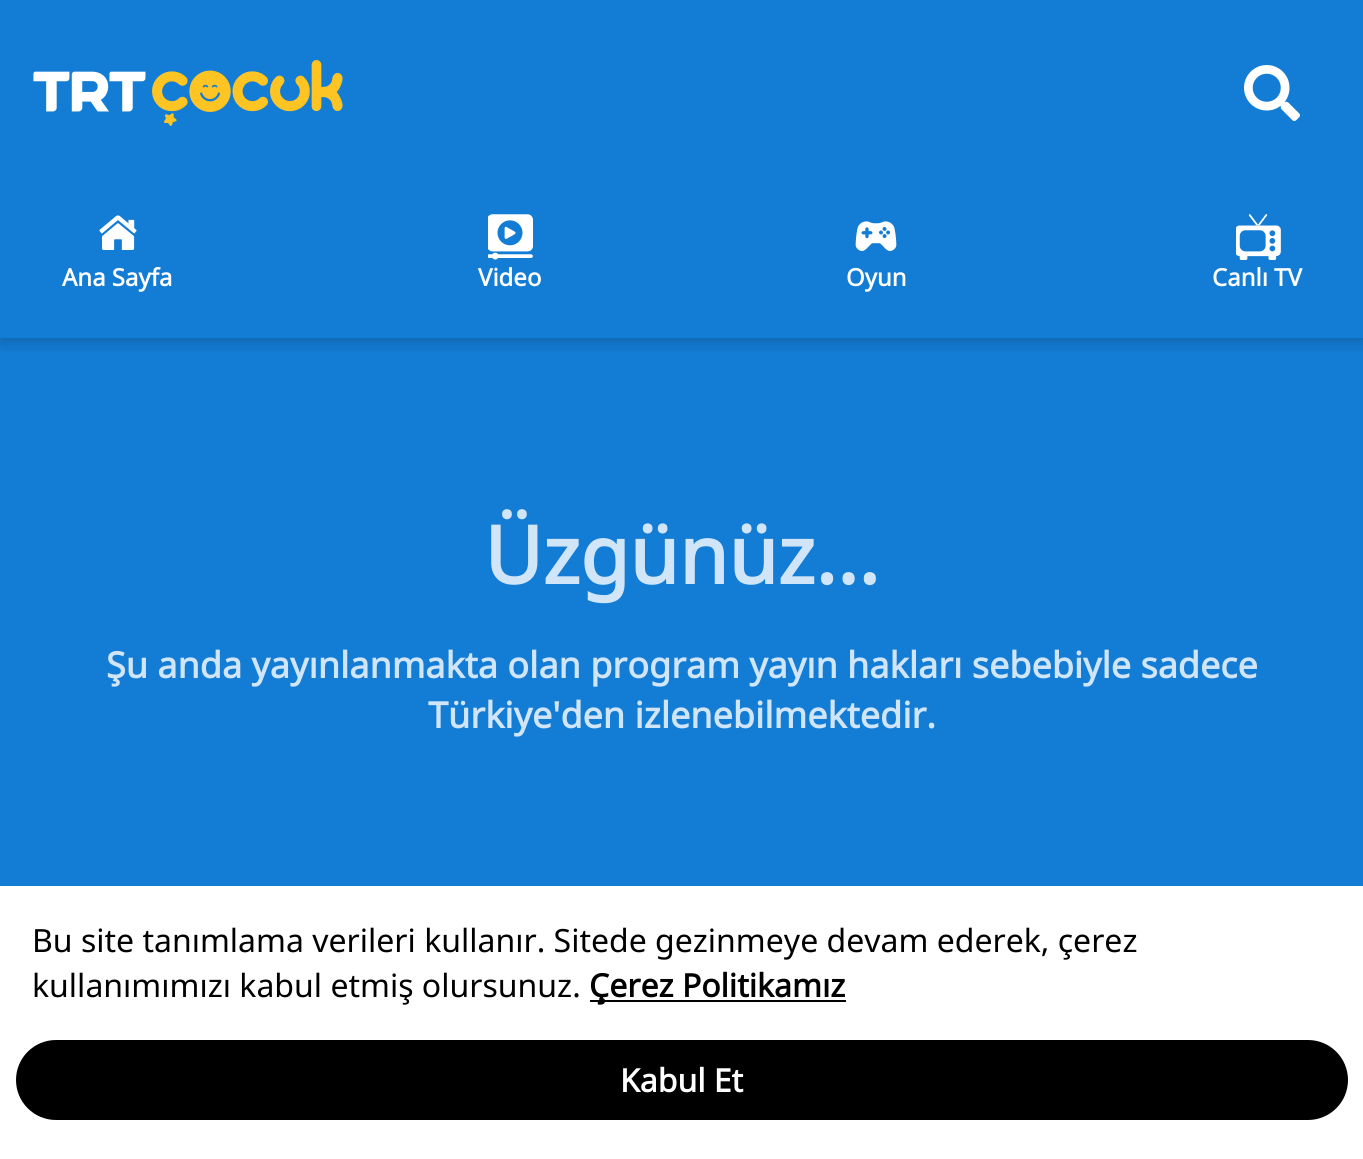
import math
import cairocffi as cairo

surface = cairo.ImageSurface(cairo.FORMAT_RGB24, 1363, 1159)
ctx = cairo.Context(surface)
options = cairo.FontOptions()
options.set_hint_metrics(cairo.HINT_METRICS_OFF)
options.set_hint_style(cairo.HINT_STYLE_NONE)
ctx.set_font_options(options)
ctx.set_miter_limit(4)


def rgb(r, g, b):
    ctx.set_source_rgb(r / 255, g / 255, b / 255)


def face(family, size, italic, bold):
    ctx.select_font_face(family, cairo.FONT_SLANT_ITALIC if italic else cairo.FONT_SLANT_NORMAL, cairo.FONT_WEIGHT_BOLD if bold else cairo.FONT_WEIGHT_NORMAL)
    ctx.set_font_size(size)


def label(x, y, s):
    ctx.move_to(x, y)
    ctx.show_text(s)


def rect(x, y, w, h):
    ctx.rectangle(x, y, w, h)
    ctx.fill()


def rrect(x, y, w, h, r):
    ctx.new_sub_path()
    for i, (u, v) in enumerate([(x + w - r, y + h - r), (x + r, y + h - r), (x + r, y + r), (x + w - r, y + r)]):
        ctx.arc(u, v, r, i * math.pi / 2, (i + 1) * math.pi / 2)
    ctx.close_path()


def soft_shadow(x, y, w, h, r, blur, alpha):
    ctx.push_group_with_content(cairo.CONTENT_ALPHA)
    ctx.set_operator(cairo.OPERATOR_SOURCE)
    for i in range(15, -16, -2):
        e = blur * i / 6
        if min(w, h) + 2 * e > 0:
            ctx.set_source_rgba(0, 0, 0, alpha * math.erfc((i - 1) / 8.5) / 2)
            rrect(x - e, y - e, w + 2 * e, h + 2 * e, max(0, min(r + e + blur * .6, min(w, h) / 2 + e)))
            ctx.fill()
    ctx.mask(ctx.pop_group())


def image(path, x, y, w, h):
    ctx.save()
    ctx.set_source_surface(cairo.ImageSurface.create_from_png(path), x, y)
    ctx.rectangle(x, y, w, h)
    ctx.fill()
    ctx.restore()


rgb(19, 124, 213)
ctx.paint()
ctx.save()
ctx.rectangle(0, 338, 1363, 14)
ctx.clip()
rgb(0, 0, 0)
soft_shadow(0, 4, 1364, 338, 0, 8, 0.2)
ctx.restore()
image('image0.png', 33, 60, 310, 66)
image('image1.png', 1244, 65, 56, 56)
image('image2.png', 99, 215, 38, 35)
face('Noto Sans', 24, 0, 1)
rgb(255, 255, 255)
label(62, 286, 'Ana Sayfa')
image('image3.png', 488, 214, 45, 46)
label(478, 286, 'Video')
image('image4.png', 855, 221, 42, 30)
label(846, 286, 'Oyun')
image('image5.png', 1236, 214, 45, 46)
label(1212, 286, 'Canlı TV')
rect(0, 886, 1363, 273)
face('Noto Sans', 32, 0, 0)
rgb(0, 0, 0)
label(32, 952, 'Bu site tanımlama verileri kullanır. Sitede gezinmeye devam ederek, çerez')
label(32, 997, 'kullanımımızı kabul etmiş olursunuz.')
rect(590, 1000, 256, 2)
face('Noto Sans', 32, 0, 1)
label(589, 997, 'Çerez Politikamız')
rrect(16, 1040, 1332, 80, 40)
ctx.fill()
rgb(255, 255, 255)
label(620, 1092, 'Kabul Et')
face('Noto Sans', 80, 0, 1)
rgb(208, 229, 247)
label(484, 584, 'Üzgünüz...')
face('Noto Sans', 36, 0, 1)
label(106, 678, 'Şu anda yayınlanmakta olan program yayın hakları sebebiyle sadece')
label(428, 728, 'Türkiye\'den izlenebilmektedir.')
surface.write_to_png('render.png')
